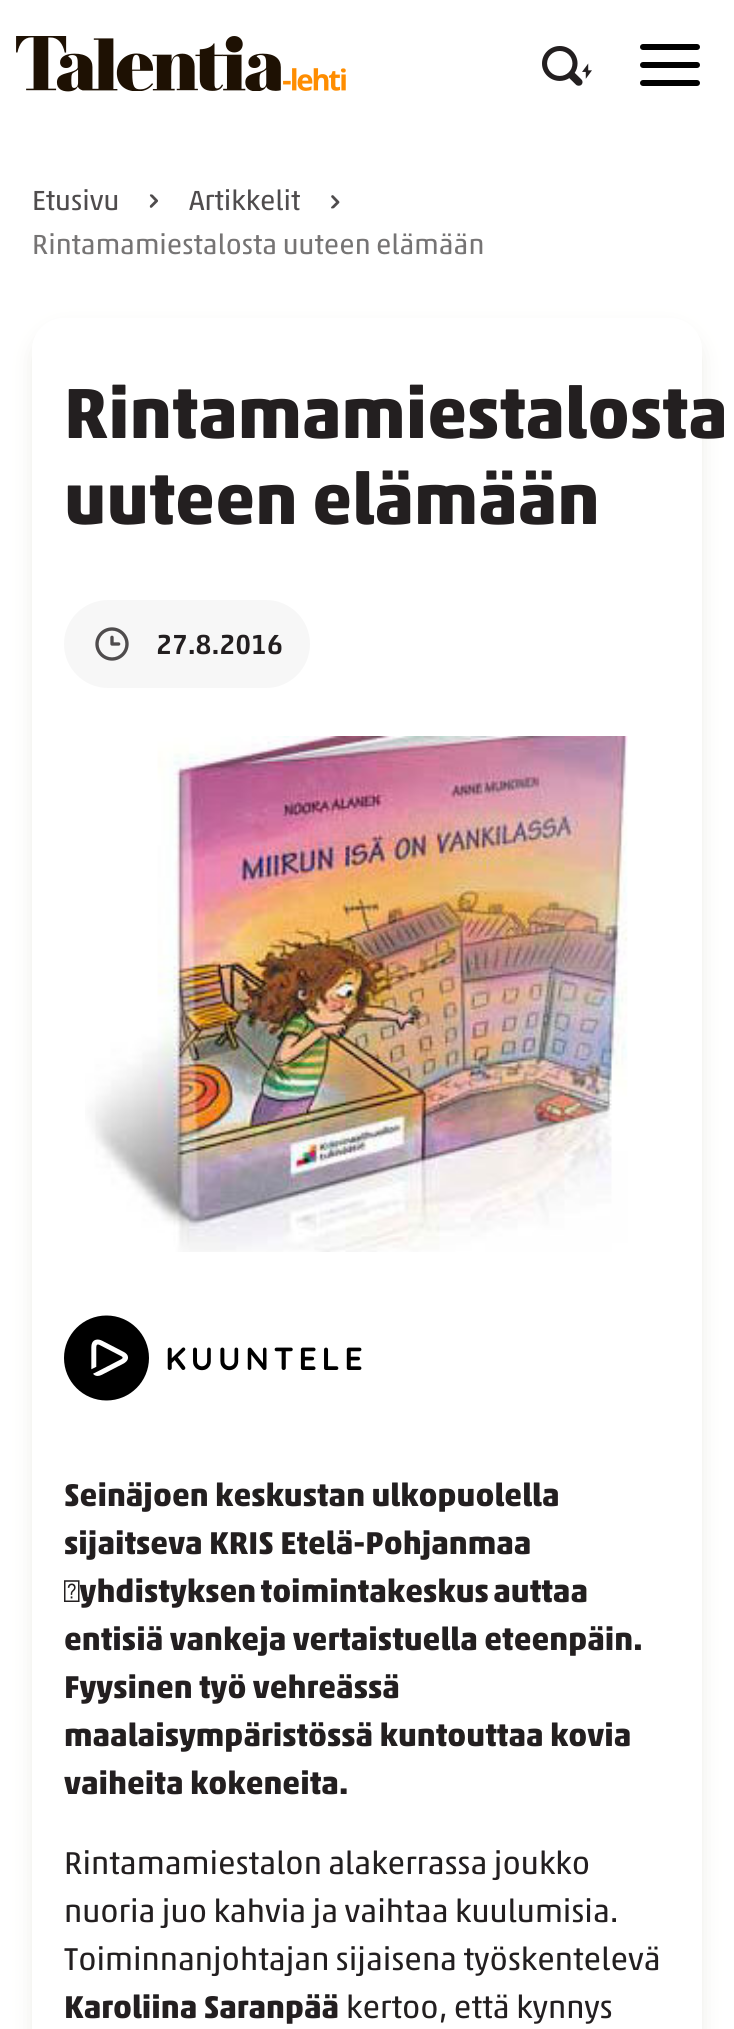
import math
import cairocffi as cairo

surface = cairo.ImageSurface(cairo.FORMAT_RGB24, 734, 2029)
ctx = cairo.Context(surface)
options = cairo.FontOptions()
options.set_hint_metrics(cairo.HINT_METRICS_OFF)
options.set_hint_style(cairo.HINT_STYLE_NONE)
ctx.set_font_options(options)
ctx.set_miter_limit(4)


def rgb(r, g, b):
    ctx.set_source_rgb(r / 255, g / 255, b / 255)


def face(family, size, italic, bold):
    ctx.select_font_face(family, cairo.FONT_SLANT_ITALIC if italic else cairo.FONT_SLANT_NORMAL, cairo.FONT_WEIGHT_BOLD if bold else cairo.FONT_WEIGHT_NORMAL)
    ctx.set_font_size(size)


def label(x, y, s):
    ctx.move_to(x, y)
    ctx.show_text(s)


def tracked(x, y, s, letter, word):
    ctx.move_to(x, y)
    for ch in s:
        ctx.show_text(ch)
        ctx.rel_move_to(letter + word * (ch == ' '), 0)


def rrect(x, y, w, h, r):
    ctx.new_sub_path()
    for i, (u, v) in enumerate([(x + w - r, y + h - r), (x + r, y + h - r), (x + r, y + r), (x + w - r, y + r)]):
        ctx.arc(u, v, r, i * math.pi / 2, (i + 1) * math.pi / 2)
    ctx.close_path()


def soft_shadow(x, y, w, h, r, blur, alpha):
    ctx.push_group_with_content(cairo.CONTENT_ALPHA)
    ctx.set_operator(cairo.OPERATOR_SOURCE)
    for i in range(15, -16, -2):
        e = blur * i / 6
        if min(w, h) + 2 * e > 0:
            ctx.set_source_rgba(0, 0, 0, alpha * math.erfc((i - 1) / 8.5) / 2)
            rrect(x - e, y - e, w + 2 * e, h + 2 * e, max(0, min(r + e + blur * .6, min(w, h) / 2 + e)))
            ctx.fill()
    ctx.mask(ctx.pop_group())


def image(path, x, y, w, h):
    ctx.save()
    ctx.set_source_surface(cairo.ImageSurface.create_from_png(path), x, y)
    ctx.rectangle(x, y, w, h)
    ctx.fill()
    ctx.restore()


rgb(255, 255, 255)
ctx.paint()
image('image0.png', 16, 36, 330, 56)
image('image1.png', 542, 46, 50, 40)
rgb(0, 0, 0)
rrect(640, 62, 60, 6, 3)
ctx.fill()
rrect(640, 44, 60, 6, 3)
ctx.fill()
rrect(640, 80, 60, 6, 3)
ctx.fill()
face('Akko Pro', 28, 0, 0)
rgb(79, 76, 77)
label(32, 210, 'Etusivu')
image('image2.png', 149, 194, 10, 14)
label(189, 210, 'Artikkelit')
image('image3.png', 331, 195, 9, 14)
rgb(118, 116, 116)
label(32, 254, 'Rintamamiestalosta uuteen elämään')
ctx.save()
ctx.set_fill_rule(cairo.FILL_RULE_EVEN_ODD)
ctx.new_path()
ctx.move_to(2, 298)
ctx.line_to(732, 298)
ctx.line_to(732, 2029)
ctx.line_to(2, 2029)
ctx.close_path()
ctx.move_to(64, 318)
ctx.line_to(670, 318)
ctx.curve_to(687.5, 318, 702, 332.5, 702, 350)
ctx.line_to(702, 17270)
ctx.curve_to(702, 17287.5, 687.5, 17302, 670, 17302)
ctx.line_to(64, 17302)
ctx.curve_to(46.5, 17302, 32, 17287.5, 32, 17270)
ctx.line_to(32, 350)
ctx.curve_to(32, 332.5, 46.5, 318, 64, 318)
ctx.close_path()
ctx.clip()
rgb(207, 204, 191)
soft_shadow(36, 332, 662, 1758, 28, 11, 0.5)
ctx.restore()
face('Akko Pro', 72, 0, 1)
rgb(35, 31, 32)
label(64, 438, 'Rintamamiestalosta')
label(64, 524, 'uuteen elämään')
rgb(247, 247, 247)
rrect(64, 600, 246, 88, 44)
ctx.fill()
image('image4.png', 95, 627, 34, 34)
face('Akko Pro Medium', 28, 0, 0)
rgb(35, 31, 32)
label(156, 654, '27.8.2016')
image('image5.png', 85, 736, 543, 516)
image('image6.png', 64, 1315, 298, 86)
face('Akko Pro', 32, 0, 1)
label(64, 1506, 'Seinäjoen keskustan ulkopuolella')
label(64, 1554, 'sijaitseva KRIS Etelä-Pohjanmaa')
tracked(64, 1602, '‑yhdistyksen toimintakeskus auttaa', 0, -2)
label(64, 1650, 'entisiä vankeja vertaistuella eteenpäin.')
label(64, 1698, 'Fyysinen työ vehreässä')
label(64, 1746, 'maalaisympäristössä kuntouttaa kovia')
label(64, 1794, 'vaiheita kokeneita.')
face('Akko Pro', 32, 0, 0)
label(64, 1874, 'Rintamamiestalon alakerrassa joukko')
label(64, 1922, 'nuoria juo kahvia ja vaihtaa kuulumisia.')
label(64, 1970, 'Toiminnanjohtajan sijaisena työskentelevä')
face('Akko Pro', 32, 0, 1)
label(64, 2018, 'Karoliina Saranpää')
face('Akko Pro', 32, 0, 0)
label(346, 2018, 'kertoo, että kynnys')
surface.write_to_png('render.png')
